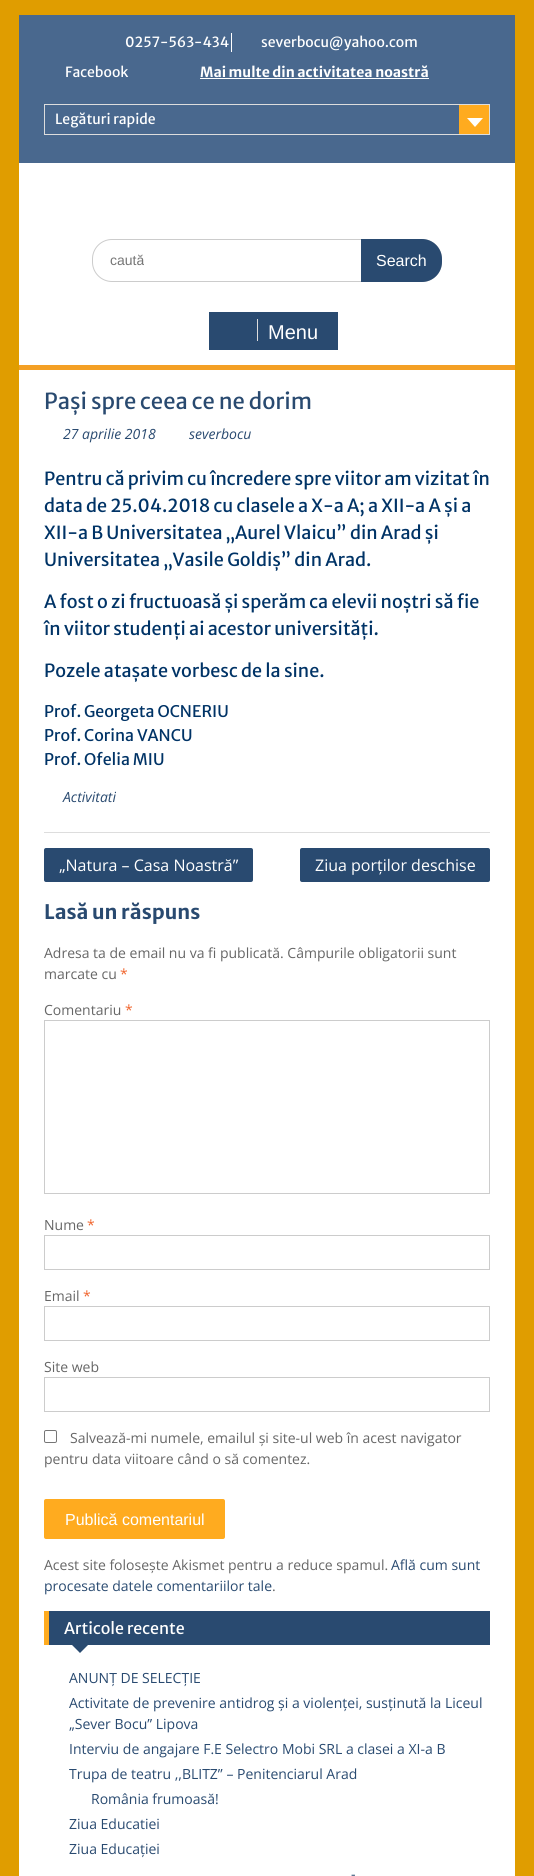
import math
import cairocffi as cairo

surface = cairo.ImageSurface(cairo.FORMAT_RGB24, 534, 1876)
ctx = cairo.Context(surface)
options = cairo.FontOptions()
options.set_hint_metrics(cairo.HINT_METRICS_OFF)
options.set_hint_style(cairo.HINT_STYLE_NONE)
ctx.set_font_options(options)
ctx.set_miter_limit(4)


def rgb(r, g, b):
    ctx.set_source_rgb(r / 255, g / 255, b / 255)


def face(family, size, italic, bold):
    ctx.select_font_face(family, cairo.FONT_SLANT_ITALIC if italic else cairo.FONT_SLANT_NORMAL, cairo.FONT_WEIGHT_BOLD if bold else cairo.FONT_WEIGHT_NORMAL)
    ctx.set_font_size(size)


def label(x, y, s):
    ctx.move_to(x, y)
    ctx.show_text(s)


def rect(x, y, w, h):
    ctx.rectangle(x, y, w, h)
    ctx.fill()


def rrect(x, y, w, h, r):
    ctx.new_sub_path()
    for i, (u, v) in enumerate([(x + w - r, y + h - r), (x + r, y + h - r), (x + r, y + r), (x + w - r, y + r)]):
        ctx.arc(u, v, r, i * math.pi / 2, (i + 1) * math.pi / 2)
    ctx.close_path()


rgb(224, 157, 0)
ctx.paint()
rgb(255, 255, 255)
rect(19, 163, 496, 1713)
rgb(73, 104, 142)
rect(19, 15, 496, 148)
face('Merriweather Sans', 14, 0, 0)
rgb(255, 255, 255)
label(125, 47, '0257-563-434')
rect(231, 33, 1, 19)
label(261, 47, 'severbocu@yahoo.com')
label(65, 77, 'Facebook')
face('Merriweather Sans', 14, 0, 1)
label(200, 77, 'Mai multe din activitatea noastră')
rect(200, 78, 229, 1)
ctx.rectangle(44.5, 104.5, 445, 30)
rgb(221, 221, 221)
ctx.set_line_width(1)
ctx.stroke()
face('Merriweather Sans', 14, 0, 0)
rgb(255, 255, 255)
label(55, 124, 'Legături rapide')
rgb(255, 171, 31)
rect(459, 105, 30, 29)
rgb(255, 255, 255)
ctx.new_path()
ctx.move_to(467, 118)
ctx.line_to(483, 118)
ctx.line_to(475, 127)
ctx.close_path()
ctx.fill()
rrect(92.5, 239.5, 349, 42, 19.5)
rgb(204, 204, 204)
ctx.stroke()
face('Liberation Sans', 14, 0, 0)
rgb(117, 117, 117)
label(110, 265, 'caută')
rgb(41, 74, 112)
ctx.new_path()
ctx.move_to(361, 239)
ctx.line_to(422, 239)
ctx.curve_to(433, 239, 442, 248, 442, 259)
ctx.line_to(442, 262)
ctx.curve_to(442, 273, 433, 282, 422, 282)
ctx.line_to(361, 282)
ctx.close_path()
ctx.fill()
face('Liberation Sans', 16, 0, 0)
rgb(255, 255, 255)
label(376, 266, 'Search')
rgb(244, 160, 36)
rect(19, 365, 496, 5)
rgb(41, 74, 112)
rect(209, 312, 129, 38)
rgb(221, 221, 221)
rect(257, 319, 1, 22)
face('Liberation Sans', 20, 0, 0)
rgb(255, 255, 255)
label(268, 339, 'Menu')
rgb(221, 221, 221)
rect(44, 832, 446, 1)
face('Merriweather Sans', 22, 0, 0)
rgb(41, 74, 112)
label(44, 409, 'Pași spre ceea ce ne dorim')
face('Open Sans', 14, 1, 0)
label(63, 439, '27 aprilie 2018')
label(189, 439, 'severbocu')
face('Merriweather Sans', 18, 0, 0)
rgb(0, 51, 102)
label(44, 485, 'Pentru că privim cu încredere spre viitor am vizitat în')
label(44, 512, 'data de 25.04.2018 cu clasele a X-a A; a XII-a A și a')
label(44, 539, 'XII-a B Universitatea „Aurel Vlaicu” din Arad și')
label(44, 566, 'Universitatea „Vasile Goldiș” din Arad.')
label(44, 608, 'A fost o zi fructuoasă și sperăm ca elevii noștri să fie')
label(44, 635, 'în viitor studenți ai acestor universități.')
label(44, 677, 'Pozele atașate vorbesc de la sine.')
face('Merriweather Sans', 16, 0, 0)
label(44, 717, 'Prof. Georgeta OCNERIU')
label(44, 741, 'Prof. Corina VANCU')
label(44, 765, 'Prof. Ofelia MIU')
face('Open Sans', 14, 1, 0)
rgb(41, 74, 112)
label(63, 802, 'Activitati')
rrect(44, 848, 209, 34, 2)
ctx.fill()
face('Open Sans', 16, 0, 0)
rgb(255, 255, 255)
label(59, 871, '„Natura – Casa Noastră”')
rgb(41, 74, 112)
rrect(300, 848, 190, 34, 2)
ctx.fill()
rgb(255, 255, 255)
label(315, 871, 'Ziua porților deschise')
face('Merriweather Sans', 20, 0, 1)
rgb(41, 74, 112)
label(44, 919, 'Lasă un răspuns')
face('Open Sans', 14, 0, 0)
rgb(102, 102, 102)
label(44, 958, 'Adresa ta de email nu va fi publicată. Câmpurile obligatorii sunt')
label(44, 979, 'marcate cu')
rgb(240, 99, 43)
label(120, 979, '*')
rgb(102, 102, 102)
label(44, 1015, 'Comentariu')
rgb(240, 99, 43)
label(125, 1015, '*')
ctx.rectangle(44.5, 1020.5, 445, 173)
rgb(204, 204, 204)
ctx.stroke()
rgb(102, 102, 102)
label(44, 1230, 'Nume')
rgb(240, 99, 43)
label(87, 1230, '*')
ctx.rectangle(44.5, 1235.5, 445, 34)
rgb(204, 204, 204)
ctx.stroke()
rgb(102, 102, 102)
label(44, 1301, 'Email')
rgb(240, 99, 43)
label(83, 1301, '*')
ctx.rectangle(44.5, 1306.5, 445, 34)
rgb(204, 204, 204)
ctx.stroke()
rgb(102, 102, 102)
label(44, 1372, 'Site web')
ctx.rectangle(44.5, 1377.5, 445, 34)
rgb(204, 204, 204)
ctx.stroke()
rrect(44.5, 1430.5, 12, 12, 1.5)
rgb(118, 118, 118)
ctx.stroke()
rgb(102, 102, 102)
label(70, 1443, 'Salvează-mi numele, emailul și site-ul web în acest navigator')
label(44, 1464, 'pentru data viitoare când o să comentez.')
rgb(255, 171, 31)
rrect(44, 1499, 181, 40, 2)
ctx.fill()
face('Liberation Sans', 16, 0, 0)
rgb(255, 255, 255)
label(65, 1525, 'Publică comentariul')
face('Open Sans', 14, 0, 0)
rgb(102, 102, 102)
label(44, 1570, 'Acest site folosește Akismet pentru a reduce spamul.')
rgb(41, 74, 112)
label(391, 1570, 'Află cum sunt')
label(44, 1591, 'procesate datele comentariilor tale')
rgb(102, 102, 102)
label(272, 1591, '.')
rgb(41, 74, 112)
rect(49, 1611, 441, 34)
rgb(255, 171, 31)
rect(44, 1611, 5, 34)
face('Merriweather Sans', 16, 0, 0)
rgb(255, 255, 255)
label(64, 1634, 'Articole recente')
rgb(41, 74, 112)
ctx.new_path()
ctx.move_to(71, 1644)
ctx.line_to(89, 1644)
ctx.line_to(80, 1653)
ctx.close_path()
ctx.fill()
face('Open Sans', 14, 0, 0)
label(69, 1683, 'ANUNȚ DE SELECȚIE')
label(69, 1708, 'Activitate de prevenire antidrog și a violenței, susținută la Liceul')
label(69, 1729, '„Sever Bocu” Lipova')
label(69, 1754, 'Interviu de angajare F.E Selectro Mobi SRL a clasei a XI-a B')
label(69, 1779, 'Trupa de teatru ,,BLITZ” – Penitenciarul Arad')
label(91, 1804, 'România frumoasă!')
label(69, 1829, 'Ziua Educatiei')
label(69, 1854, 'Ziua Educației')
label(351, 1879, '-')
surface.write_to_png('render.png')
